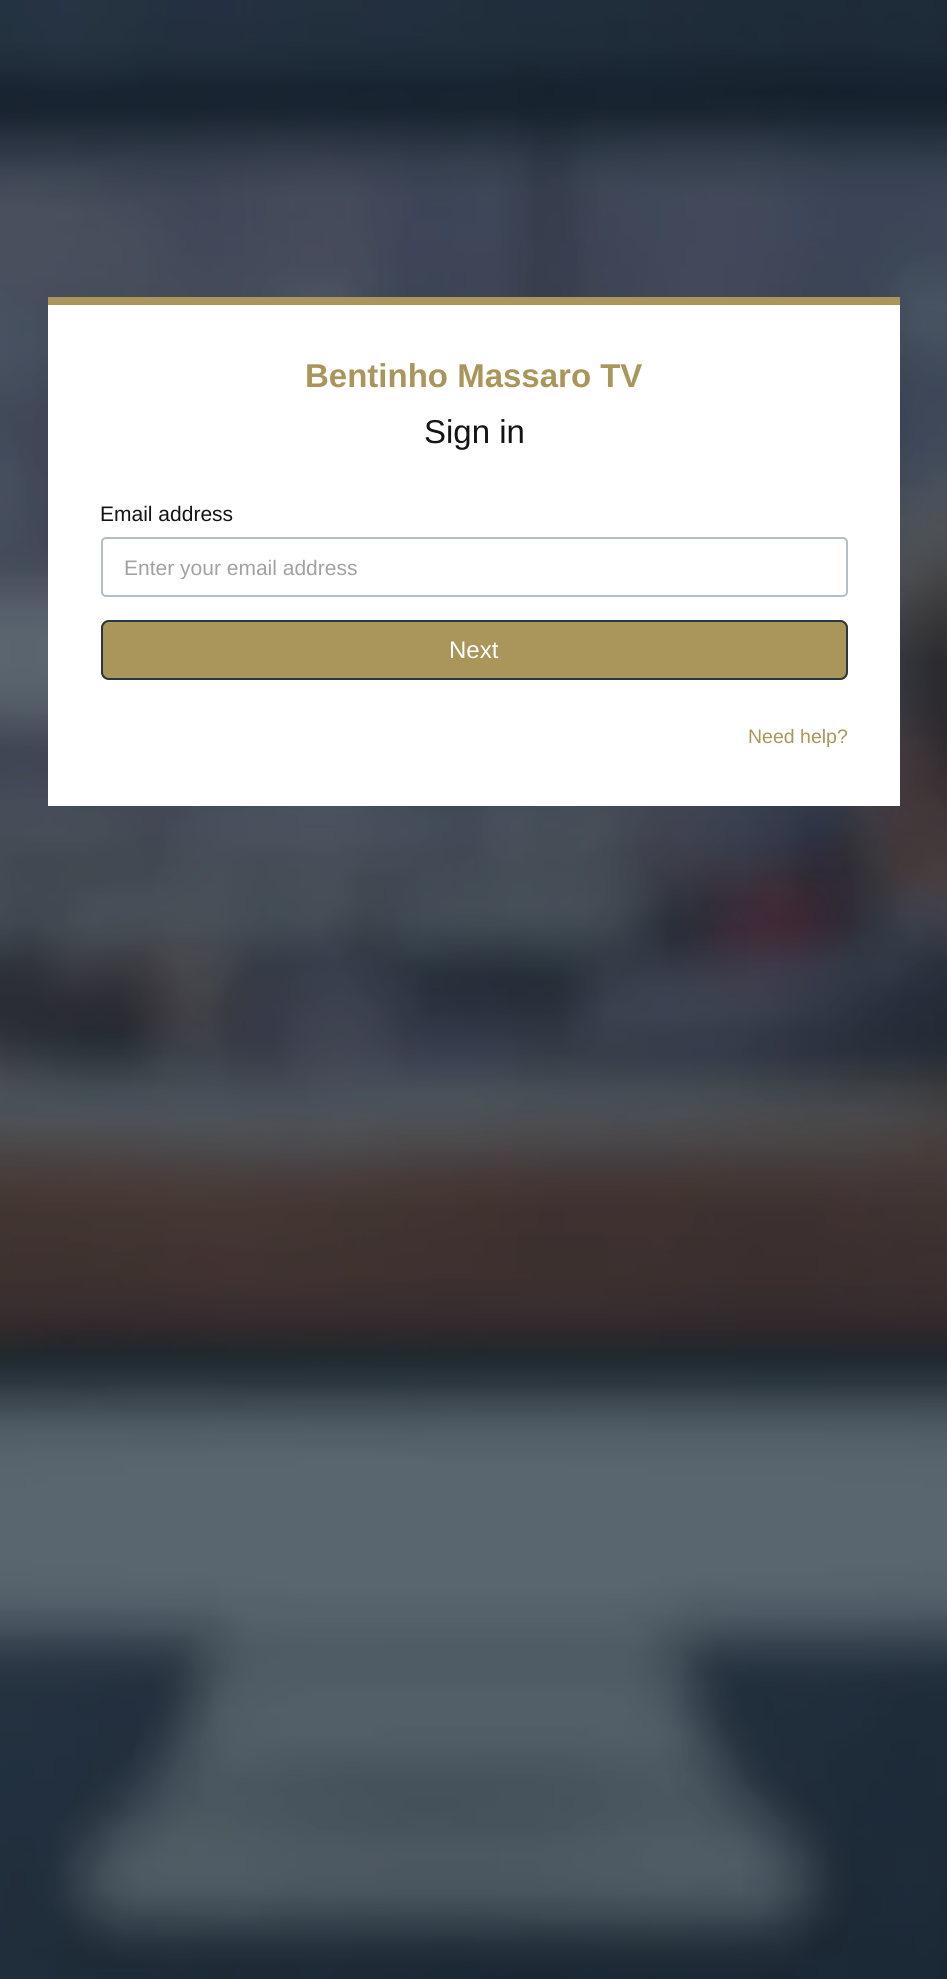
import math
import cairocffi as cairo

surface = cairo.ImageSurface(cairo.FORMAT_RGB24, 947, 1979)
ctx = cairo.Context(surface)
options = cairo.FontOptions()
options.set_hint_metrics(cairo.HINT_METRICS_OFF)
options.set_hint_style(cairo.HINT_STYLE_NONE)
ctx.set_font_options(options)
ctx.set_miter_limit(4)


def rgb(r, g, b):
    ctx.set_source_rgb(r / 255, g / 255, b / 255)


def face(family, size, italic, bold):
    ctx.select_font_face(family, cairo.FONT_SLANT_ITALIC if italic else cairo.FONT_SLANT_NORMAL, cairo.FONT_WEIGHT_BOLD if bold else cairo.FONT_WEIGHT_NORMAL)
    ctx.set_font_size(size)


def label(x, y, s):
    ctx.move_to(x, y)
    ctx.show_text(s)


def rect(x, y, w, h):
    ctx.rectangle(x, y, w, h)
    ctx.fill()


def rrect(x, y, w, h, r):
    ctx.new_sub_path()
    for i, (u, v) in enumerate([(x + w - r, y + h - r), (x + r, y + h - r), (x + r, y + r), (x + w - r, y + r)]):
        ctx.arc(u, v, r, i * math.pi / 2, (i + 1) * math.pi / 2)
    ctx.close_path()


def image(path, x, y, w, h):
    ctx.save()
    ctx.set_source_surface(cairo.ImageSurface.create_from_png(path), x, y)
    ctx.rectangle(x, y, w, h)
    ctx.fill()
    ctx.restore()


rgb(26, 46, 59)
ctx.paint()
image('image0.png', 0, 0, 947, 1979)
rgb(255, 255, 255)
rect(48, 305, 852, 501)
rgb(170, 149, 91)
rect(48, 297, 852, 8)
face('Liberation Sans', 33, 0, 1)
label(305, 387, 'Bentinho Massaro TV')
face('Liberation Sans', 33, 0, 0)
rgb(20, 20, 20)
label(424, 443, 'Sign in')
face('Liberation Sans', 21, 0, 0)
label(100, 521, 'Email address')
rrect(102, 538, 745, 58, 4)
rgb(179, 191, 200)
ctx.stroke()
ctx.save()
ctx.rectangle(125, 555, 699, 24)
ctx.clip()
rgb(161, 161, 161)
label(124, 575, 'Enter your email address')
ctx.restore()
rgb(170, 149, 91)
rrect(101, 620, 747, 60, 8)
ctx.fill()
rrect(102, 621, 745, 58, 7)
ctx.set_source_rgba(0.102, 0.18, 0.231, 0.9)
ctx.stroke()
face('Liberation Sans', 24, 0, 0)
rgb(255, 255, 255)
label(449, 658, 'Next')
face('Liberation Sans', 19.5, 0, 0)
rgb(170, 149, 91)
label(748, 743, 'Need help?')
surface.write_to_png('render.png')
